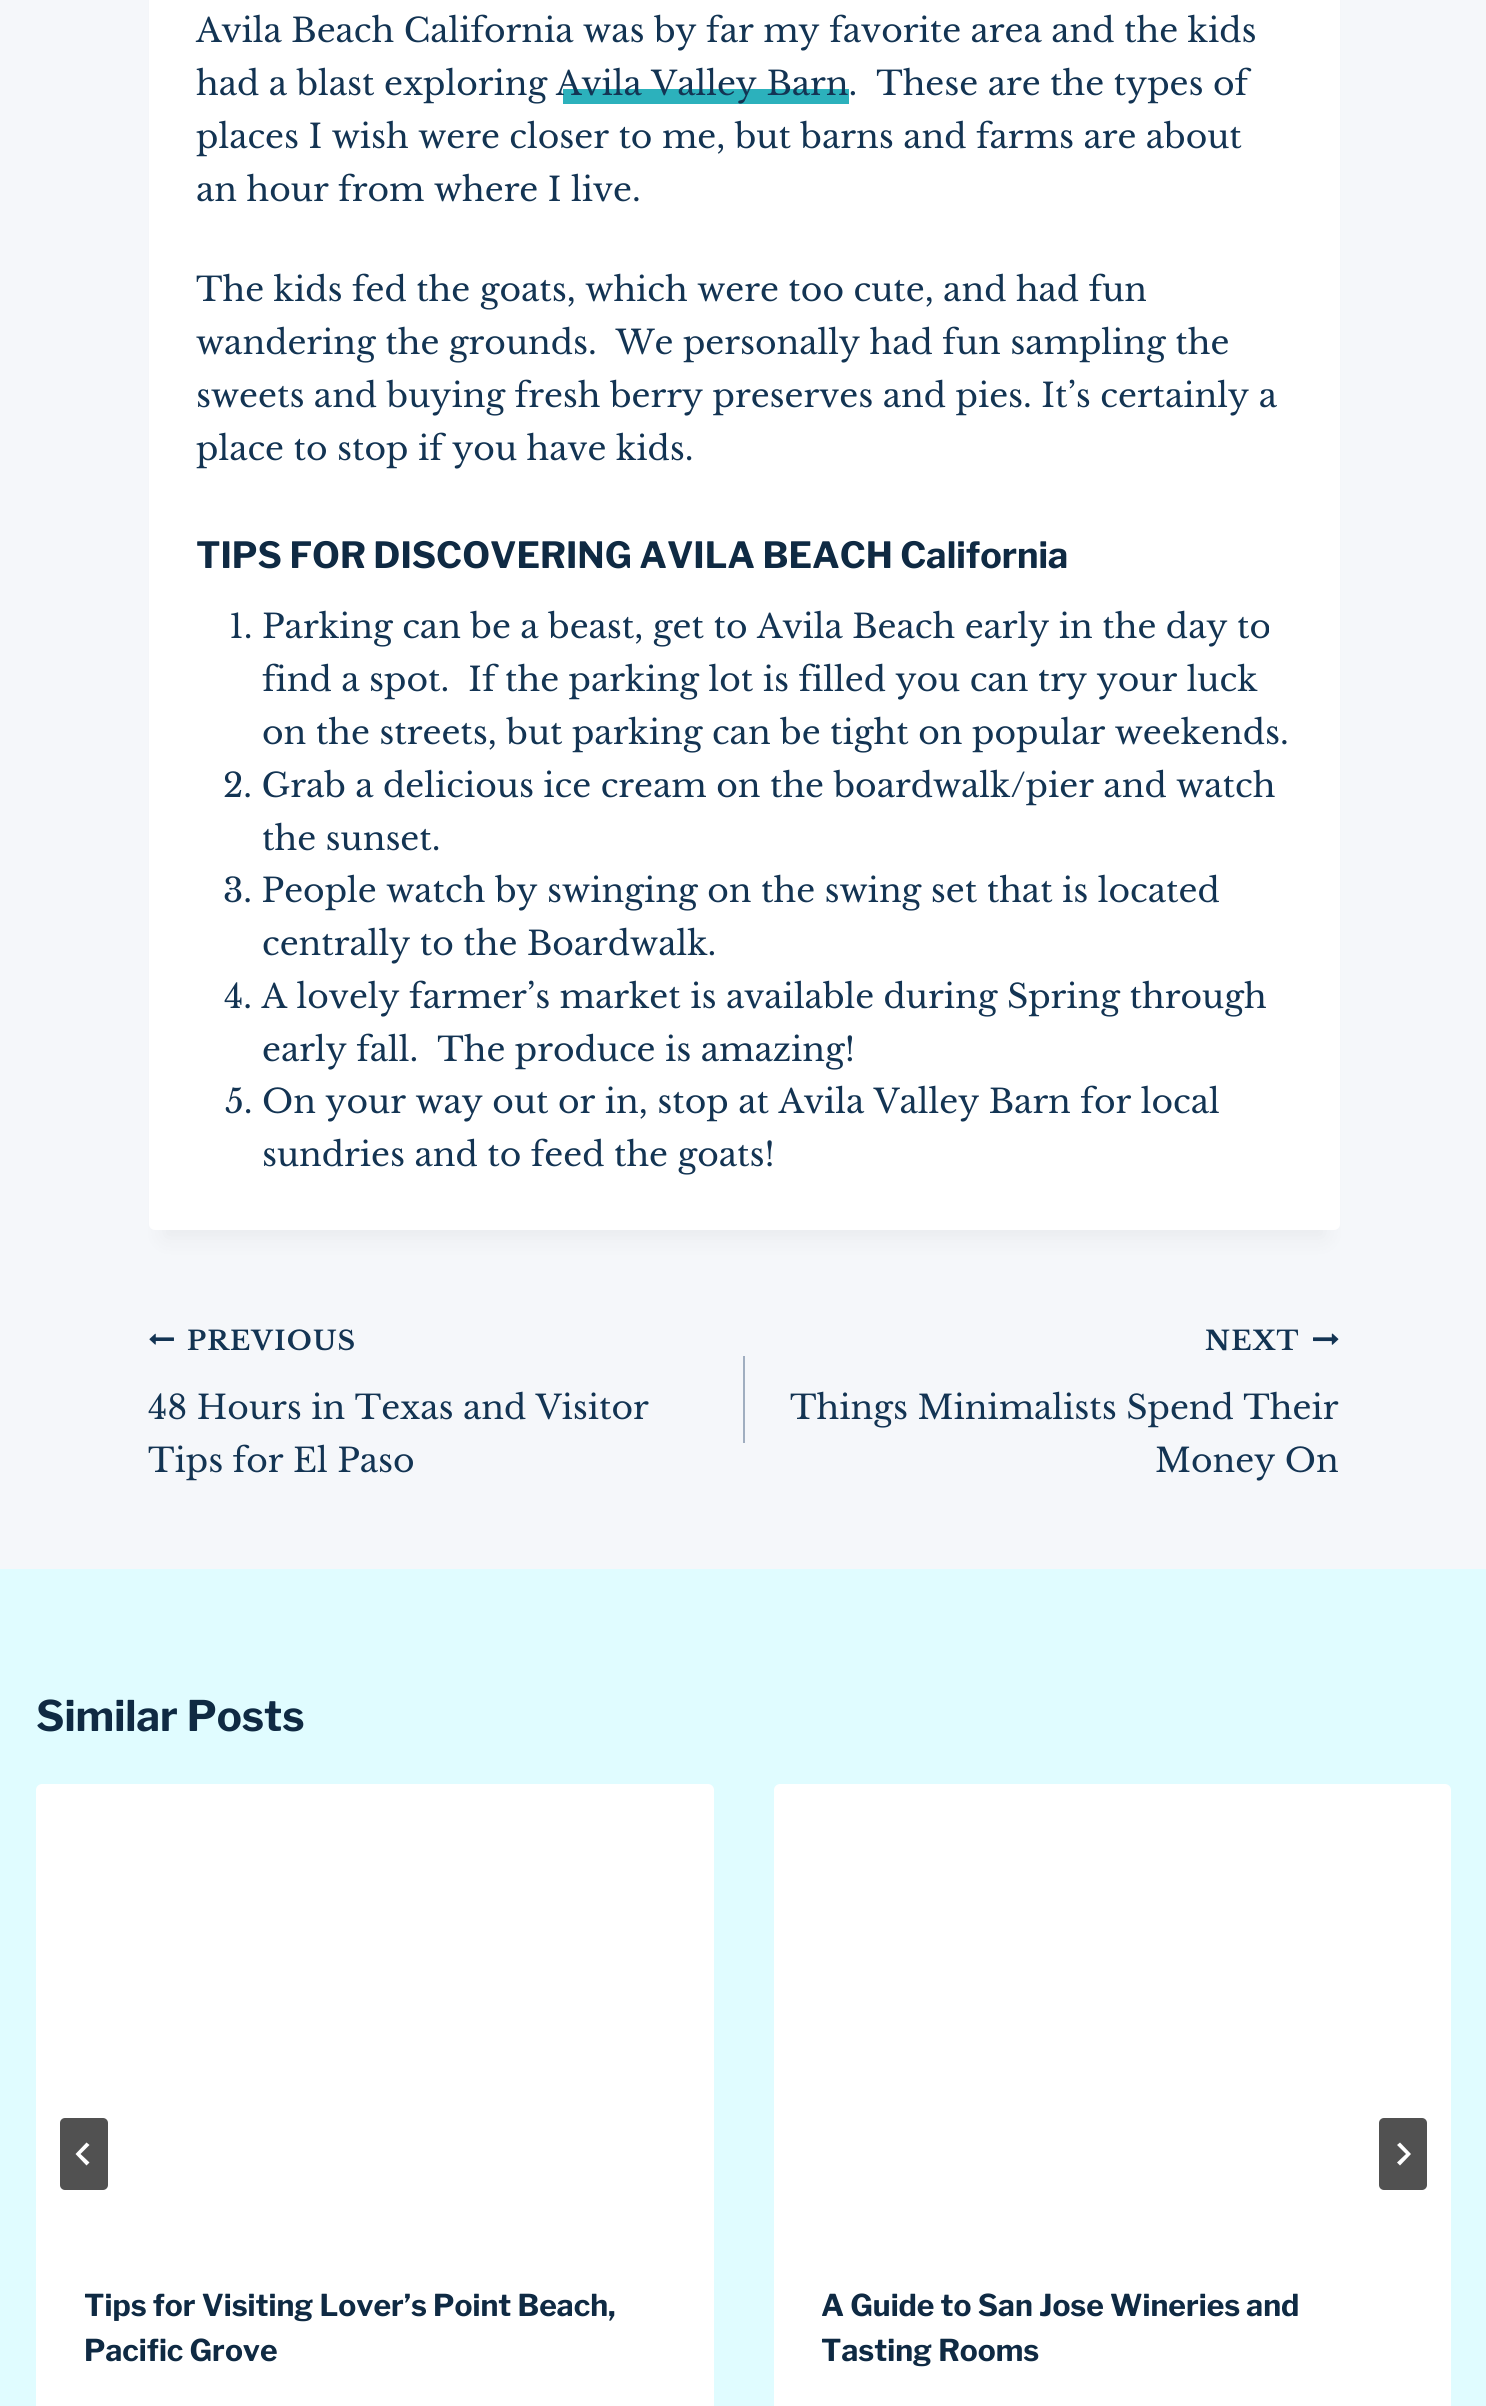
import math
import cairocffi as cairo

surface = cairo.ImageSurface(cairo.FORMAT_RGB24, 1486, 2406)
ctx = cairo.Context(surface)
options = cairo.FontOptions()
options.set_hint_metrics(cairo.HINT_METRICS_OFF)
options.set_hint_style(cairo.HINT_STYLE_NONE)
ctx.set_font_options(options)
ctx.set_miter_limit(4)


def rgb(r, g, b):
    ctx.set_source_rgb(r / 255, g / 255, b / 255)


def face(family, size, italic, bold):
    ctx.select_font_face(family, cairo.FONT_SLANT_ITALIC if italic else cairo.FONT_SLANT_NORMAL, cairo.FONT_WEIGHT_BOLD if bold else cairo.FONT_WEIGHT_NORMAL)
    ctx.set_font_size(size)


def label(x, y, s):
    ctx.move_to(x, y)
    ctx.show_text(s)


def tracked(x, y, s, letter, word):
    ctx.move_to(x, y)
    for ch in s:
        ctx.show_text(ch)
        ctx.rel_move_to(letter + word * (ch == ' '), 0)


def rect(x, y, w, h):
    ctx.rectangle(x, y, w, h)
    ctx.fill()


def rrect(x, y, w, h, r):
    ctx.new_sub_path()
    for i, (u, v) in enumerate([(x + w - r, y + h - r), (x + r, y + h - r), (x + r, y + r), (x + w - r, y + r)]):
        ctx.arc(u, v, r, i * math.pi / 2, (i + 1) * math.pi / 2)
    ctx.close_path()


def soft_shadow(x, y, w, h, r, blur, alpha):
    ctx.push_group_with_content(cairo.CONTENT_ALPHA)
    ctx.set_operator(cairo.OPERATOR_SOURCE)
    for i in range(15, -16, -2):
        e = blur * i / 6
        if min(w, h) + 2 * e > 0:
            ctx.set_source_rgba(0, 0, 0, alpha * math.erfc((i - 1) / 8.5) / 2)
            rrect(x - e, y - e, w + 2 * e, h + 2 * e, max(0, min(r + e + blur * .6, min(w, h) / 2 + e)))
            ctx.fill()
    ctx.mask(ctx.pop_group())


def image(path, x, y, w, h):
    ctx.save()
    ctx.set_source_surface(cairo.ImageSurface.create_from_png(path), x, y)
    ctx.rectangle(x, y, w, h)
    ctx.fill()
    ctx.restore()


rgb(245, 247, 250)
ctx.paint()
rgb(0, 0, 0)
soft_shadow(164, -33, 1161, 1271, 0, 11, 0.05)
rgb(255, 255, 255)
rrect(149, -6, 1191, 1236, 6)
ctx.fill()
face('Libre Baskerville', 33, 0, 0)
rgb(19, 52, 83)
label(196, 42, 'Avila Beach California was by far my favorite area and the kids')
label(196, 95, 'had a blast exploring')
rgb(44, 177, 188)
rect(563, 89, 286, 15)
rgb(19, 52, 83)
label(556, 95, 'Avila Valley Barn.  These are the types of')
label(196, 148, 'places I wish were closer to me, but barns and farms are about')
label(196, 201, 'an hour from where I live.')
label(196, 301, 'The kids fed the goats, which were too cute, and had fun')
label(196, 354, 'wandering the grounds.  We personally had fun sampling the')
label(196, 407, 'sweets and buying fresh berry preserves and pies. It’s certainly a')
label(196, 460, 'place to stop if you have kids.')
face('Libre Franklin Thin', 36, 0, 0)
rgb(15, 42, 67)
label(196, 568, 'TIPS FOR DISCOVERING AVILA BEACH California')
face('Libre Baskerville', 33, 0, 0)
rgb(19, 52, 83)
label(229, 638, '1. Parking can be a beast, get to Avila Beach early in the day to')
label(262, 691, 'find a spot.  If the parking lot is filled you can try your luck')
label(262, 744, 'on the streets, but parking can be tight on popular weekends.')
label(223, 797, '2. Grab a delicious ice cream on the boardwalk/pier and watch')
label(262, 850, 'the sunset.')
label(223, 902, '3. People watch by swinging on the swing set that is located')
label(262, 955, 'centrally to the Boardwalk.')
label(224, 1008, '4. A lovely farmer’s market is available during Spring through')
label(262, 1061, 'early fall.  The produce is amazing!')
label(225, 1113, '5. On your way out or in, stop at Avila Valley Barn for local')
label(262, 1166, 'sundries and to feed the goats!')
image('image0.png', 149, 1333, 25, 12)
face('Libre Baskerville', 26.5, 0, 1)
tracked(187, 1350, 'PREVIOUS', 1.25, 0)
face('Libre Baskerville', 33, 0, 0)
label(148, 1419, '48 Hours in Texas and Visitor')
label(148, 1472, 'Tips for El Paso')
rgb(160, 174, 192)
rect(743, 1356, 2, 87)
face('Libre Baskerville', 26.5, 0, 1)
rgb(19, 52, 83)
tracked(1205, 1350, 'NEXT', 1.25, 0)
image('image1.png', 1313, 1333, 26, 12)
face('Libre Baskerville', 33, 0, 0)
label(790, 1419, 'Things Minimalists Spend Their')
label(1155, 1472, 'Money On')
rgb(224, 252, 255)
rect(0, 1569, 1486, 837)
face('Libre Franklin Thin', 42, 0, 0)
rgb(15, 42, 67)
label(36, 1731, 'Similar Posts')
rgb(255, 255, 255)
rrect(36, 1784, 678, 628, 6)
ctx.fill()
rgb(81, 81, 81)
rrect(60, 2118, 48, 72, 5)
ctx.fill()
rgb(255, 255, 255)
ctx.new_path()
ctx.move_to(86.5, 2142.5)
ctx.line_to(89.5, 2145)
ctx.line_to(80.5, 2154)
ctx.line_to(89.5, 2162.5)
ctx.line_to(86.5, 2165.5)
ctx.line_to(75.5, 2154)
ctx.close_path()
ctx.fill()
rrect(774, 1784, 677, 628, 6)
ctx.fill()
rgb(81, 81, 81)
rrect(1379, 2118, 48, 72, 5)
ctx.fill()
rgb(255, 255, 255)
ctx.new_path()
ctx.move_to(1400, 2142.5)
ctx.line_to(1397, 2145)
ctx.line_to(1406, 2154)
ctx.line_to(1397, 2162.5)
ctx.line_to(1400, 2165.5)
ctx.line_to(1411, 2154)
ctx.close_path()
ctx.fill()
face('Libre Franklin Thin', 30, 0, 0)
rgb(15, 42, 67)
label(84, 2316, 'Tips for Visiting Lover’s Point Beach,')
label(84, 2361, 'Pacific Grove')
label(821, 2316, 'A Guide to San Jose Wineries and')
label(821, 2361, 'Tasting Rooms')
surface.write_to_png('render.png')
